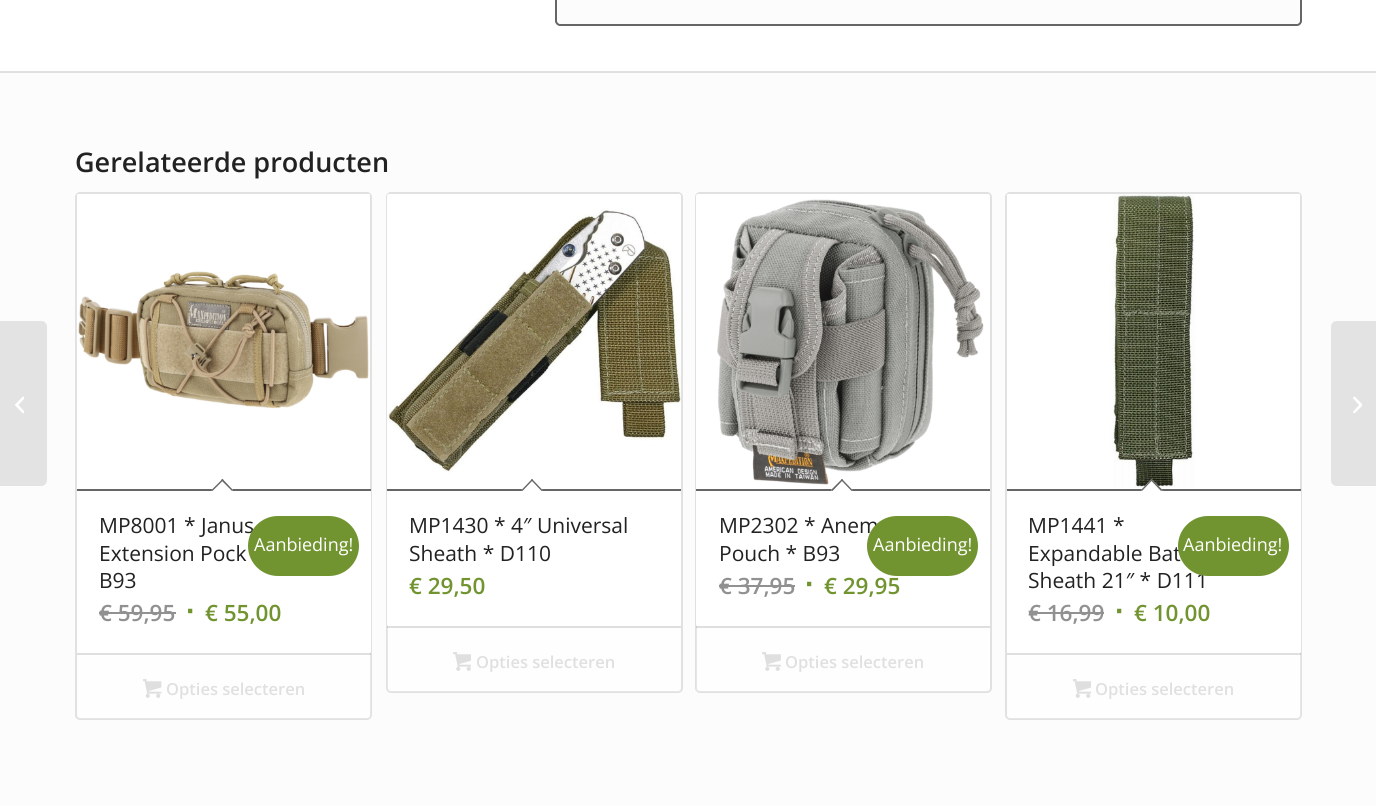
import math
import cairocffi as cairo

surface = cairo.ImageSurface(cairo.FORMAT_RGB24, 1376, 806)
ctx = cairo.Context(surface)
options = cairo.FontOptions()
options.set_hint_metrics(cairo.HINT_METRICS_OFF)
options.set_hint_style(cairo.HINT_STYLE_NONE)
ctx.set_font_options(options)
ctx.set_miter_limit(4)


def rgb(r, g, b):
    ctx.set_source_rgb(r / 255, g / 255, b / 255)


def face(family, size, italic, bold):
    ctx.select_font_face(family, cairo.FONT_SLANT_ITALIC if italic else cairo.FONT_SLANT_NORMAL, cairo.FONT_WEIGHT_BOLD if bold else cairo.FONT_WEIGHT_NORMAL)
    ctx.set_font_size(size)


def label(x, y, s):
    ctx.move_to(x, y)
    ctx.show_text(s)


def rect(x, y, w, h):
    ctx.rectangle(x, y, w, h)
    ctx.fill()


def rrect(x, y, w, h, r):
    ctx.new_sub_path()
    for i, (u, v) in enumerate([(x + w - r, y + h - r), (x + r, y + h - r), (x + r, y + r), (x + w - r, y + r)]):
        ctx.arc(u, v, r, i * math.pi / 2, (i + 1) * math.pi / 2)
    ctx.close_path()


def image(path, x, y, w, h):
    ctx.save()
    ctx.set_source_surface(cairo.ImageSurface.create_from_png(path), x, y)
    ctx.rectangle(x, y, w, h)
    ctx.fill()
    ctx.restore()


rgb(252, 252, 252)
ctx.paint()
rgb(227, 227, 227)
ctx.new_path()
ctx.move_to(0, 321)
ctx.line_to(41, 321)
ctx.curve_to(44.5, 321, 47, 323.5, 47, 327)
ctx.line_to(47, 480)
ctx.curve_to(47, 483.5, 44.5, 486, 41, 486)
ctx.line_to(0, 486)
ctx.close_path()
ctx.fill()
image('image0.png', 15, 396, 9, 18)
rgb(255, 255, 255)
rect(0, 0, 1376, 71)
rgb(252, 252, 252)
ctx.new_path()
ctx.move_to(556, -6)
ctx.line_to(1301, -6)
ctx.line_to(1301, 21)
ctx.curve_to(1301, 23, 1299, 25, 1297, 25)
ctx.line_to(560, 25)
ctx.curve_to(558, 25, 556, 23, 556, 21)
ctx.close_path()
ctx.fill_preserve()
rgb(102, 102, 102)
ctx.stroke()
rgb(225, 225, 225)
rect(0, 71, 1376, 2)
face('Open Sans SemiBold', 27, 0, 0)
rgb(34, 34, 34)
label(75, 172, 'Gerelateerde producten')
rgb(255, 255, 255)
rrect(76, 193, 295, 526, 4)
ctx.fill_preserve()
rgb(225, 225, 225)
ctx.stroke()
image('image1.png', 77, 194, 293, 215)
rgb(255, 255, 255)
ctx.new_path()
ctx.move_to(77, 489)
ctx.line_to(371, 489)
ctx.line_to(371, 651.5)
ctx.curve_to(371, 652.5, 370.5, 653, 369.5, 653)
ctx.line_to(78.5, 653)
ctx.curve_to(77.5, 653, 77, 652.5, 77, 651.5)
ctx.close_path()
ctx.fill()
rgb(102, 102, 102)
rect(77, 489, 294, 2)
rgb(255, 255, 255)
ctx.new_path()
ctx.move_to(222.5, 479)
ctx.line_to(233, 490)
ctx.line_to(222.5, 500.5)
ctx.line_to(211.5, 490)
ctx.close_path()
ctx.fill()
rgb(102, 102, 102)
ctx.new_path()
ctx.move_to(222.5, 479)
ctx.line_to(233, 490)
ctx.line_to(232, 491)
ctx.line_to(221, 480)
ctx.close_path()
ctx.fill()
ctx.new_path()
ctx.move_to(222.5, 479)
ctx.line_to(223.5, 480)
ctx.line_to(212.5, 491)
ctx.line_to(211.5, 490)
ctx.close_path()
ctx.fill()
face('Open Sans', 21, 0, 0)
rgb(34, 34, 34)
label(99, 533, 'MP8001 * Janus')
label(99, 561, 'Extension Pock')
label(99, 588, 'B93')
rgb(113, 148, 48)
rrect(248, 516, 111, 60, 30)
ctx.fill()
face('Open Sans', 18, 0, 0)
rgb(255, 255, 255)
label(254, 551, 'Aanbieding!')
face('Open Sans SemiBold', 22.5, 0, 0)
rgb(145, 145, 145)
label(99, 621, '€ 59,95')
rect(99, 612, 77, 2)
face('Liberation Sans', 30, 0, 1)
rgb(113, 148, 48)
label(186, 621, '∙')
face('Open Sans SemiBold', 22.5, 0, 0)
label(205, 621, '€ 55,00')
ctx.set_source_rgba(0.988, 0.988, 0.988, 0.2)
ctx.new_path()
ctx.move_to(77, 653)
ctx.line_to(371, 653)
ctx.line_to(371, 716)
ctx.curve_to(371, 717.5, 369.5, 719, 368, 719)
ctx.line_to(80, 719)
ctx.curve_to(78.5, 719, 77, 717.5, 77, 716)
ctx.close_path()
ctx.fill()
ctx.set_source_rgba(0.4, 0.4, 0.4, 0.2)
rect(77, 653, 294, 2)
image('image2.png', 143, 679, 19, 19)
face('Open Sans SemiBold', 16.5, 0, 0)
rgb(224, 224, 224)
label(166, 695, 'Opties selecteren')
rgb(255, 255, 255)
rrect(387, 193, 295, 499, 4)
ctx.fill_preserve()
rgb(225, 225, 225)
ctx.stroke()
image('image3.png', 387, 194, 294, 295)
rgb(255, 255, 255)
ctx.new_path()
ctx.move_to(387, 489)
ctx.line_to(681, 489)
ctx.line_to(681, 624.5)
ctx.curve_to(681, 625.5, 680.5, 626, 679.5, 626)
ctx.line_to(388.5, 626)
ctx.curve_to(387.5, 626, 387, 625.5, 387, 624.5)
ctx.close_path()
ctx.fill()
rgb(102, 102, 102)
rect(387, 489, 294, 2)
rgb(255, 255, 255)
ctx.new_path()
ctx.move_to(532, 479)
ctx.line_to(542.5, 490)
ctx.line_to(532, 500.5)
ctx.line_to(521.5, 490)
ctx.close_path()
ctx.fill()
rgb(102, 102, 102)
ctx.new_path()
ctx.move_to(532, 479)
ctx.line_to(542.5, 490)
ctx.line_to(541.5, 491)
ctx.line_to(531, 480)
ctx.close_path()
ctx.fill()
ctx.new_path()
ctx.move_to(532, 479)
ctx.line_to(533, 480)
ctx.line_to(522.5, 491)
ctx.line_to(521.5, 490)
ctx.close_path()
ctx.fill()
face('Open Sans', 21, 0, 0)
rgb(34, 34, 34)
label(409, 533, 'MP1430 * 4″ Universal')
label(409, 561, 'Sheath * D110')
face('Open Sans SemiBold', 22.5, 0, 0)
rgb(113, 148, 48)
label(409, 594, '€ 29,50')
ctx.set_source_rgba(0.988, 0.988, 0.988, 0.2)
ctx.new_path()
ctx.move_to(387, 626)
ctx.line_to(681, 626)
ctx.line_to(681, 689)
ctx.curve_to(681, 690.5, 679.5, 692, 678, 692)
ctx.line_to(390, 692)
ctx.curve_to(388.5, 692, 387, 690.5, 387, 689)
ctx.close_path()
ctx.fill()
ctx.set_source_rgba(0.4, 0.4, 0.4, 0.2)
rect(387, 626, 294, 2)
image('image4.png', 453, 652, 18, 19)
face('Open Sans SemiBold', 16.5, 0, 0)
rgb(224, 224, 224)
label(476, 668, 'Opties selecteren')
rgb(255, 255, 255)
rrect(696, 193, 295, 499, 4)
ctx.fill_preserve()
rgb(225, 225, 225)
ctx.stroke()
image('image5.png', 696, 194, 294, 295)
rgb(255, 255, 255)
ctx.new_path()
ctx.move_to(696, 489)
ctx.line_to(990, 489)
ctx.line_to(990, 624.5)
ctx.curve_to(990, 625.5, 989.5, 626, 988.5, 626)
ctx.line_to(697.5, 626)
ctx.curve_to(696.5, 626, 696, 625.5, 696, 624.5)
ctx.close_path()
ctx.fill()
rgb(102, 102, 102)
rect(696, 489, 294, 2)
rgb(255, 255, 255)
ctx.new_path()
ctx.move_to(842, 479)
ctx.line_to(852.5, 490)
ctx.line_to(842, 500.5)
ctx.line_to(831, 490)
ctx.close_path()
ctx.fill()
rgb(102, 102, 102)
ctx.new_path()
ctx.move_to(842, 479)
ctx.line_to(852.5, 490)
ctx.line_to(851.5, 491)
ctx.line_to(841, 480)
ctx.close_path()
ctx.fill()
ctx.new_path()
ctx.move_to(842, 479)
ctx.line_to(843, 480)
ctx.line_to(832.5, 491)
ctx.line_to(831, 490)
ctx.close_path()
ctx.fill()
face('Open Sans', 21, 0, 0)
rgb(34, 34, 34)
label(719, 533, 'MP2302 * Anem')
label(719, 561, 'Pouch * B93')
rgb(113, 148, 48)
rrect(867, 516, 111, 60, 30)
ctx.fill()
face('Open Sans', 18, 0, 0)
rgb(255, 255, 255)
label(873, 551, 'Aanbieding!')
face('Open Sans SemiBold', 22.5, 0, 0)
rgb(145, 145, 145)
label(719, 594, '€ 37,95')
rect(719, 585, 76, 2)
face('Liberation Sans', 30, 0, 1)
rgb(113, 148, 48)
label(805, 594, '∙')
face('Open Sans SemiBold', 22.5, 0, 0)
label(824, 594, '€ 29,95')
ctx.set_source_rgba(0.988, 0.988, 0.988, 0.2)
ctx.new_path()
ctx.move_to(696, 626)
ctx.line_to(990, 626)
ctx.line_to(990, 689)
ctx.curve_to(990, 690.5, 988.5, 692, 987, 692)
ctx.line_to(699, 692)
ctx.curve_to(697.5, 692, 696, 690.5, 696, 689)
ctx.close_path()
ctx.fill()
ctx.set_source_rgba(0.4, 0.4, 0.4, 0.2)
rect(696, 626, 294, 2)
image('image6.png', 762, 652, 19, 19)
face('Open Sans SemiBold', 16.5, 0, 0)
rgb(224, 224, 224)
label(785, 668, 'Opties selecteren')
rgb(255, 255, 255)
rrect(1006, 193, 295, 526, 4)
ctx.fill_preserve()
rgb(225, 225, 225)
ctx.stroke()
image('image7.png', 1007, 194, 293, 294)
rgb(255, 255, 255)
ctx.new_path()
ctx.move_to(1007, 489)
ctx.line_to(1301, 489)
ctx.line_to(1301, 651.5)
ctx.curve_to(1301, 652.5, 1300.5, 653, 1299.5, 653)
ctx.line_to(1008.5, 653)
ctx.curve_to(1007.5, 653, 1007, 652.5, 1007, 651.5)
ctx.close_path()
ctx.fill()
rgb(102, 102, 102)
rect(1007, 489, 294, 2)
rgb(255, 255, 255)
ctx.new_path()
ctx.move_to(1151.5, 479)
ctx.line_to(1162.5, 490)
ctx.line_to(1151.5, 500.5)
ctx.line_to(1141, 490)
ctx.close_path()
ctx.fill()
rgb(102, 102, 102)
ctx.new_path()
ctx.move_to(1151.5, 479)
ctx.line_to(1162.5, 490)
ctx.line_to(1161, 491)
ctx.line_to(1150.5, 480)
ctx.close_path()
ctx.fill()
ctx.new_path()
ctx.move_to(1151.5, 479)
ctx.line_to(1152.5, 480)
ctx.line_to(1142, 491)
ctx.line_to(1141, 490)
ctx.close_path()
ctx.fill()
face('Open Sans', 21, 0, 0)
rgb(34, 34, 34)
label(1028, 533, 'MP1441 *')
label(1028, 561, 'Expandable Bat')
label(1028, 588, 'Sheath 21″ * D111')
rgb(113, 148, 48)
rrect(1178, 516, 111, 60, 30)
ctx.fill()
face('Open Sans', 18, 0, 0)
rgb(255, 255, 255)
label(1183, 551, 'Aanbieding!')
face('Open Sans SemiBold', 22.5, 0, 0)
rgb(145, 145, 145)
label(1028, 621, '€ 16,99')
rect(1029, 612, 75, 2)
face('Liberation Sans', 30, 0, 1)
rgb(113, 148, 48)
label(1115, 621, '∙')
face('Open Sans SemiBold', 22.5, 0, 0)
label(1134, 621, '€ 10,00')
ctx.set_source_rgba(0.988, 0.988, 0.988, 0.2)
ctx.new_path()
ctx.move_to(1007, 653)
ctx.line_to(1301, 653)
ctx.line_to(1301, 716)
ctx.curve_to(1301, 717.5, 1299.5, 719, 1298, 719)
ctx.line_to(1010, 719)
ctx.curve_to(1008.5, 719, 1007, 717.5, 1007, 716)
ctx.close_path()
ctx.fill()
ctx.set_source_rgba(0.4, 0.4, 0.4, 0.2)
rect(1007, 653, 294, 2)
image('image8.png', 1073, 679, 18, 19)
face('Open Sans SemiBold', 16.5, 0, 0)
rgb(224, 224, 224)
label(1095, 695, 'Opties selecteren')
rgb(227, 227, 227)
ctx.new_path()
ctx.move_to(1337, 321)
ctx.line_to(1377, 321)
ctx.line_to(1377, 486)
ctx.line_to(1337, 486)
ctx.curve_to(1333.5, 486, 1331, 483.5, 1331, 480)
ctx.line_to(1331, 327)
ctx.curve_to(1331, 323.5, 1333.5, 321, 1337, 321)
ctx.close_path()
ctx.fill()
image('image9.png', 1353, 396, 9, 18)
surface.write_to_png('render.png')
